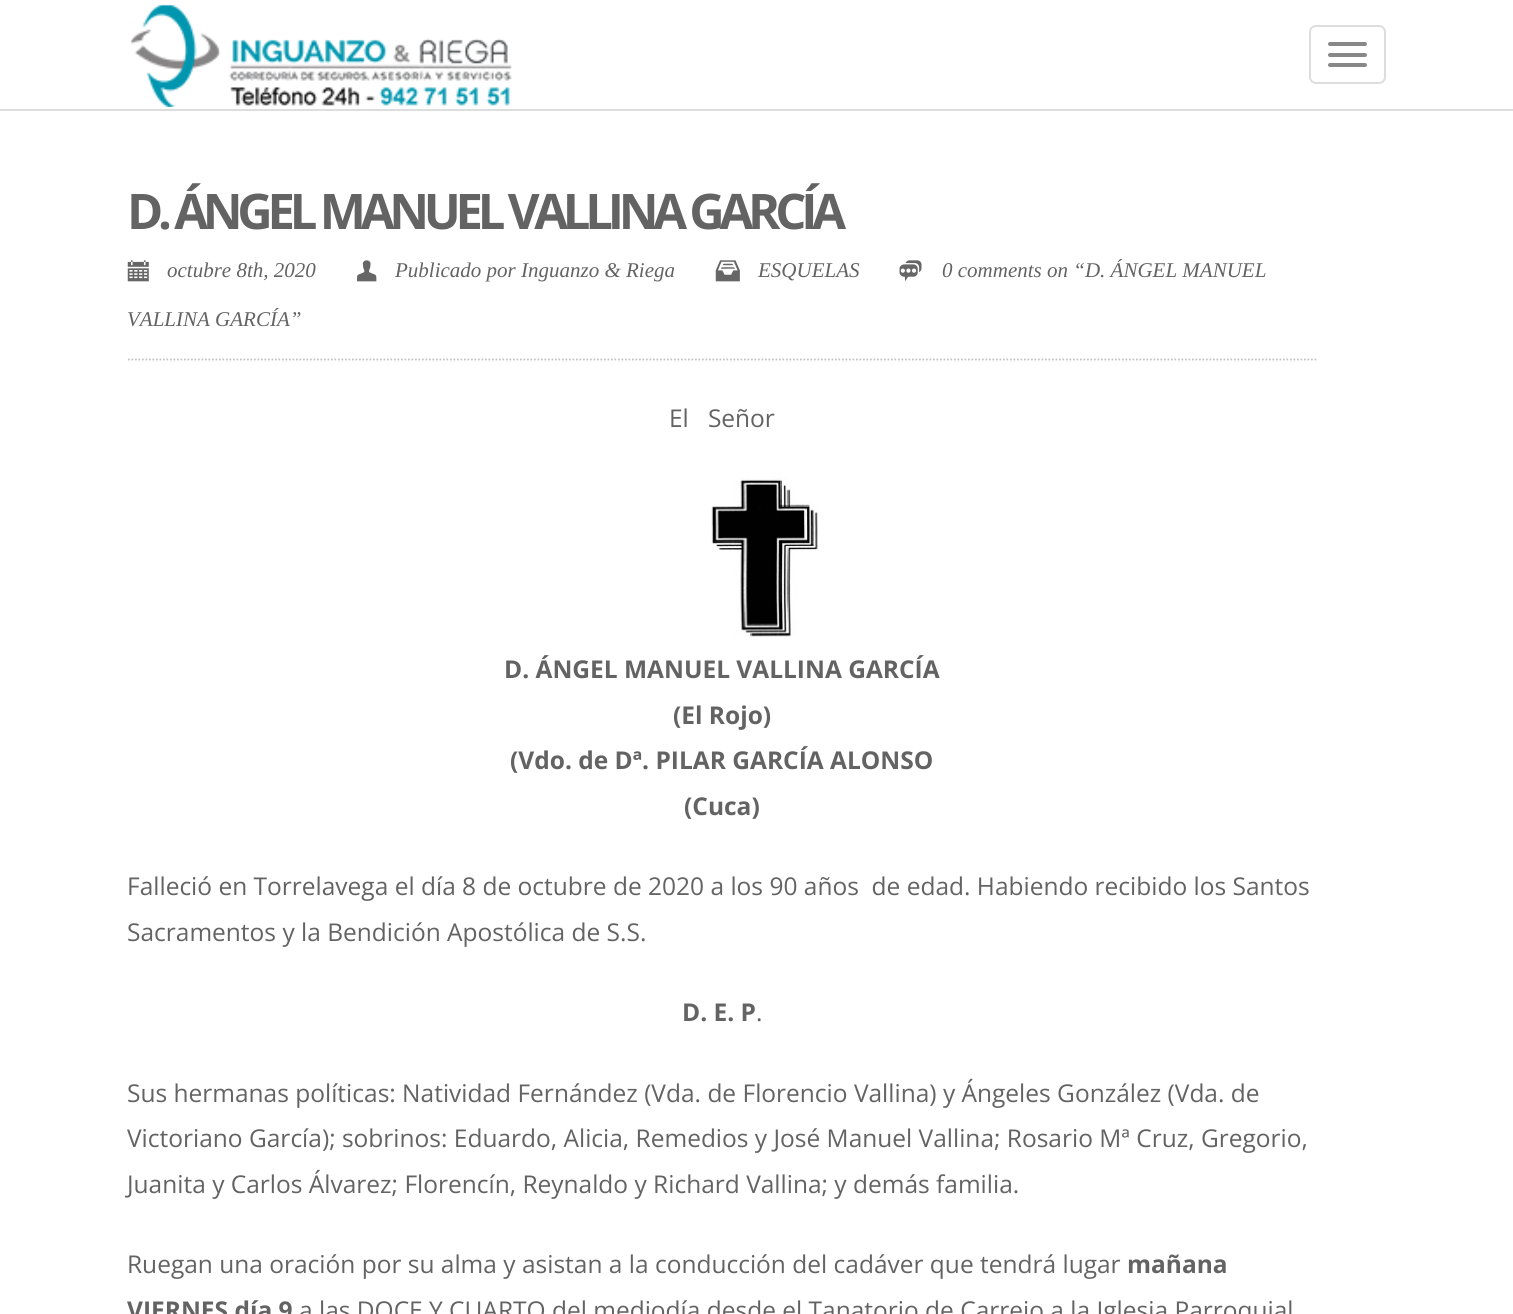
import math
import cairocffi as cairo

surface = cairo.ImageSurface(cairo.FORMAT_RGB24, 1513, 1314)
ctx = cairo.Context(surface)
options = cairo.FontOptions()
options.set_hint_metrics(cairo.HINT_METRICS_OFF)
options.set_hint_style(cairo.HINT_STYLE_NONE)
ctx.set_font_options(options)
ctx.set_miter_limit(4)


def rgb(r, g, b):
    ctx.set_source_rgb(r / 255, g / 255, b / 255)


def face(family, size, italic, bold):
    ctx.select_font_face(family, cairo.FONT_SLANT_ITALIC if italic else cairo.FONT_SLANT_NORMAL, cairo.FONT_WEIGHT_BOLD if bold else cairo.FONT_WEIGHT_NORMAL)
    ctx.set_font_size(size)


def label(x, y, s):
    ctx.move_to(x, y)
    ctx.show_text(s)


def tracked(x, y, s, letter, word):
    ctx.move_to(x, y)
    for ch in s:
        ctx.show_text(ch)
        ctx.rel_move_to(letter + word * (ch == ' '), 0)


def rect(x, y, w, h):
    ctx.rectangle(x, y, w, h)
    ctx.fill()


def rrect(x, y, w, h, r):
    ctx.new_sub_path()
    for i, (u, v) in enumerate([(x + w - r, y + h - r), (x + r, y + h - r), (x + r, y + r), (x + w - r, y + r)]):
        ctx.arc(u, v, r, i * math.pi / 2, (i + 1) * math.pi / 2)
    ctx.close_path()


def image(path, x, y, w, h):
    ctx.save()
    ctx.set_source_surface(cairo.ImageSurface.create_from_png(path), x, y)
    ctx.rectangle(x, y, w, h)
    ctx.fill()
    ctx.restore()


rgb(255, 255, 255)
ctx.paint()
rgb(221, 221, 221)
rect(0, 109, 1513, 2)
image('image0.png', 130, 4, 382, 103)
rrect(1310, 26, 75, 57, 6)
ctx.stroke()
rgb(136, 136, 136)
rrect(1328, 42, 39, 4, 2)
ctx.fill()
rrect(1328, 53, 39, 4, 2)
ctx.fill()
rrect(1328, 63, 39, 4, 2)
ctx.fill()
face('Open Sans', 49, 0, 1)
rgb(99, 99, 99)
tracked(127, 229, 'D. ÁNGEL MANUEL VALLINA GARCÍA', -5.25, 0)
image('image1.png', 127, 260, 22, 22)
face('Liberation Serif', 21, 1, 0)
label(167, 277, 'octubre 8th, 2020')
image('image2.png', 357, 260, 20, 22)
label(395, 277, 'Publicado por Inguanzo & Riega')
image('image3.png', 715, 260, 25, 22)
label(758, 277, 'ESQUELAS')
image('image4.png', 899, 260, 23, 22)
label(942, 277, '0 comments on “D. ÁNGEL MANUEL')
label(127, 326, 'VALLINA GARCÍA”')
ctx.new_path()
ctx.move_to(128, 359.5)
ctx.line_to(1318, 359.5)
rgb(194, 194, 194)
ctx.set_line_width(1.8)
ctx.set_dash([1.75, 1.75])
ctx.stroke()
face('Open Sans', 24.5, 0, 0)
rgb(99, 99, 99)
label(669, 427, 'El   Señor')
image('image5.png', 711, 477, 107, 160)
face('Open Sans', 24.5, 0, 1)
label(504, 678, 'D. ÁNGEL MANUEL VALLINA GARCÍA')
label(673, 724, '(El Rojo)')
label(510, 769, '(Vdo. de Dª. PILAR GARCÍA ALONSO')
label(684, 815, '(Cuca)')
face('Open Sans', 24.5, 0, 0)
label(127, 895, 'Falleció en Torrelavega el día 8 de octubre de 2020 a los 90 años  de edad. Habiendo recibido los Santos')
label(127, 941, 'Sacramentos y la Bendición Apostólica de S.S.')
face('Open Sans', 24.5, 0, 1)
label(682, 1021, 'D. E. P')
face('Open Sans', 24.5, 0, 0)
label(756, 1021, '.')
label(127, 1102, 'Sus hermanas políticas: Natividad Fernández (Vda. de Florencio Vallina) y Ángeles González (Vda. de')
label(127, 1147, 'Victoriano García); sobrinos: Eduardo, Alicia, Remedios y José Manuel Vallina; Rosario Mª Cruz, Gregorio,')
label(127, 1193, 'Juanita y Carlos Álvarez; Florencín, Reynaldo y Richard Vallina; y demás familia.')
label(127, 1273, 'Ruegan una oración por su alma y asistan a la conducción del cadáver que tendrá lugar')
face('Open Sans', 24.5, 0, 1)
label(1127, 1273, 'mañana')
label(127, 1319, 'VIERNES día 9')
face('Open Sans', 24.5, 0, 0)
label(299, 1319, 'a las DOCE Y CUARTO del mediodía desde el Tanatorio de Carrejo a la Iglesia Parroquial')
surface.write_to_png('render.png')
